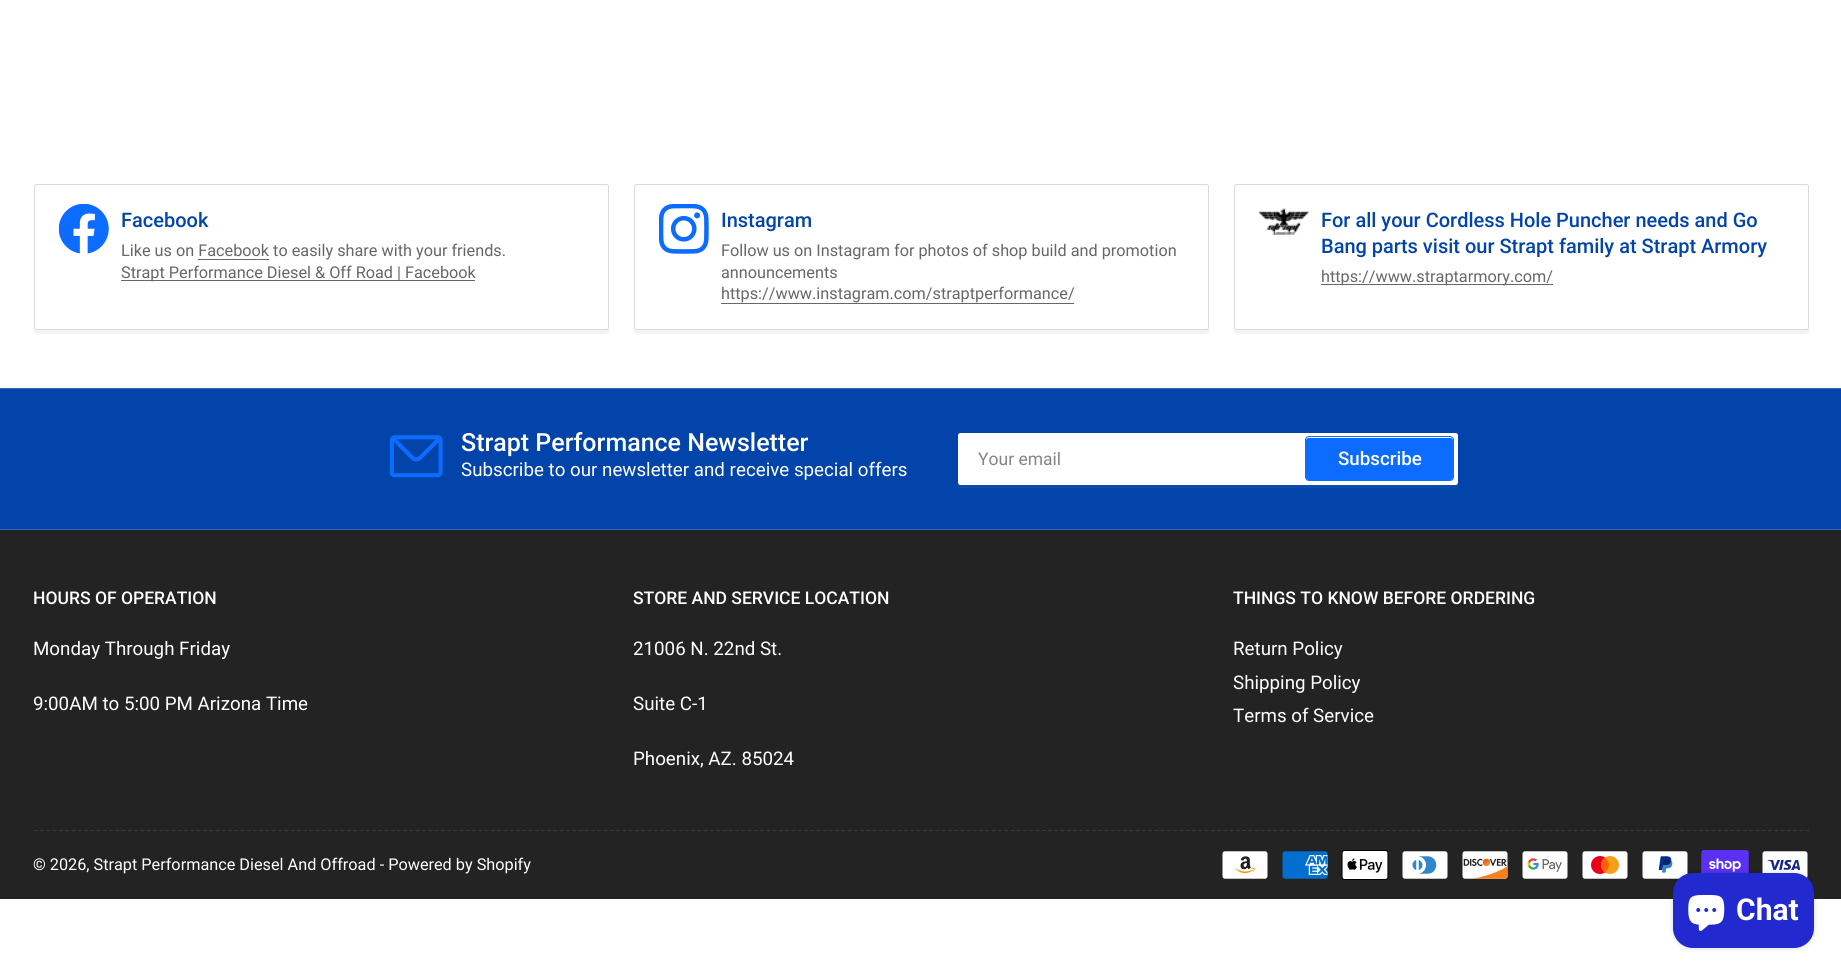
import math
import cairocffi as cairo

surface = cairo.ImageSurface(cairo.FORMAT_RGB24, 1841, 973)
ctx = cairo.Context(surface)
options = cairo.FontOptions()
options.set_hint_metrics(cairo.HINT_METRICS_OFF)
options.set_hint_style(cairo.HINT_STYLE_NONE)
ctx.set_font_options(options)
ctx.set_miter_limit(4)


def rgb(r, g, b):
    ctx.set_source_rgb(r / 255, g / 255, b / 255)


def face(family, size, italic, bold):
    ctx.select_font_face(family, cairo.FONT_SLANT_ITALIC if italic else cairo.FONT_SLANT_NORMAL, cairo.FONT_WEIGHT_BOLD if bold else cairo.FONT_WEIGHT_NORMAL)
    ctx.set_font_size(size)


def label(x, y, s):
    ctx.move_to(x, y)
    ctx.show_text(s)


def rect(x, y, w, h):
    ctx.rectangle(x, y, w, h)
    ctx.fill()


def rrect(x, y, w, h, r):
    ctx.new_sub_path()
    for i, (u, v) in enumerate([(x + w - r, y + h - r), (x + r, y + h - r), (x + r, y + r), (x + w - r, y + r)]):
        ctx.arc(u, v, r, i * math.pi / 2, (i + 1) * math.pi / 2)
    ctx.close_path()


def soft_shadow(x, y, w, h, r, blur, alpha):
    ctx.push_group_with_content(cairo.CONTENT_ALPHA)
    ctx.set_operator(cairo.OPERATOR_SOURCE)
    for i in range(15, -16, -2):
        e = blur * i / 6
        if min(w, h) + 2 * e > 0:
            ctx.set_source_rgba(0, 0, 0, alpha * math.erfc((i - 1) / 8.5) / 2)
            rrect(x - e, y - e, w + 2 * e, h + 2 * e, max(0, min(r + e + blur * .6, min(w, h) / 2 + e)))
            ctx.fill()
    ctx.mask(ctx.pop_group())


def image(path, x, y, w, h):
    ctx.save()
    ctx.set_source_surface(cairo.ImageSurface.create_from_png(path), x, y)
    ctx.rectangle(x, y, w, h)
    ctx.fill()
    ctx.restore()


rgb(255, 255, 255)
ctx.paint()
rgb(244, 244, 244)
ctx.new_path()
ctx.move_to(34, 329)
ctx.line_to(34, 332)
ctx.curve_to(34, 333, 35, 334, 36, 334)
ctx.line_to(606, 334)
ctx.curve_to(608, 334, 609, 333, 609, 332)
ctx.line_to(609, 189)
ctx.line_to(609, 328)
ctx.curve_to(609, 329, 608, 330, 606, 330)
ctx.line_to(36, 330)
ctx.curve_to(35, 330, 34, 329, 34, 329)
ctx.close_path()
ctx.fill()
rrect(34.5, 184.5, 574, 145, 2)
rgb(218, 218, 218)
ctx.set_line_width(1)
ctx.stroke()
image('image0.png', 59, 204, 50, 50)
face('Roboto Medium', 20, 0, 0)
rgb(2, 68, 169)
label(121, 227, 'Facebook')
face('Roboto', 16.25, 0, 0)
rgb(103, 103, 103)
label(121, 256, 'Like us on Facebook to easily share with your friends.')
rect(198, 259, 71, 1)
rect(121, 280, 354, 1)
label(121, 278, 'Strapt Performance Diesel & Off Road | Facebook')
rgb(244, 244, 244)
ctx.new_path()
ctx.move_to(634, 329)
ctx.line_to(634, 332)
ctx.curve_to(634, 333, 635, 334, 636, 334)
ctx.line_to(1206, 334)
ctx.curve_to(1208, 334, 1209, 333, 1209, 332)
ctx.line_to(1209, 189)
ctx.line_to(1209, 328)
ctx.curve_to(1209, 329, 1208, 330, 1206, 330)
ctx.line_to(636, 330)
ctx.curve_to(635, 330, 634, 329, 634, 329)
ctx.close_path()
ctx.fill()
rrect(634.5, 184.5, 574, 145, 2)
rgb(218, 218, 218)
ctx.stroke()
image('image1.png', 659, 204, 50, 50)
face('Roboto Medium', 20, 0, 0)
rgb(2, 68, 169)
label(721, 227, 'Instagram')
face('Roboto', 16.25, 0, 0)
rgb(103, 103, 103)
label(721, 256, 'Follow us on Instagram for photos of shop build and promotion')
label(721, 278, 'announcements')
label(721, 299, 'https://www.instagram.com/straptperformance/')
rect(721, 303, 353, 1)
rgb(244, 244, 244)
ctx.new_path()
ctx.move_to(1234, 329)
ctx.line_to(1234, 332)
ctx.curve_to(1234, 333, 1235, 334, 1236, 334)
ctx.line_to(1806, 334)
ctx.curve_to(1808, 334, 1809, 333, 1809, 332)
ctx.line_to(1809, 189)
ctx.line_to(1809, 328)
ctx.curve_to(1809, 329, 1808, 330, 1806, 330)
ctx.line_to(1236, 330)
ctx.curve_to(1235, 330, 1234, 329, 1234, 329)
ctx.close_path()
ctx.fill()
rrect(1234.5, 184.5, 574, 145, 2)
rgb(218, 218, 218)
ctx.stroke()
image('image2.png', 1258, 208, 51, 27)
face('Roboto Medium', 20, 0, 0)
rgb(2, 68, 169)
label(1321, 227, 'For all your Cordless Hole Puncher needs and Go')
label(1321, 253, 'Bang parts visit our Strapt family at Strapt Armory')
rgb(103, 103, 103)
rect(1321, 284, 232, 1)
face('Roboto', 16.25, 0, 0)
label(1321, 282, 'https://www.straptarmory.com/')
rgb(2, 68, 169)
rect(0, 389, 1841, 140)
rgb(53, 105, 186)
rect(0, 388, 1841, 1)
rect(0, 529, 1841, 1)
image('image3.png', 389, 435, 54, 43)
face('Roboto Medium', 25, 0, 0)
rgb(255, 255, 255)
label(461, 451, 'Strapt Performance Newsletter')
face('Roboto', 18.75, 0, 0)
label(461, 476, 'Subscribe to our newsletter and receive special offers')
rgb(13, 76, 171)
ctx.new_path()
ctx.move_to(958, 484)
ctx.line_to(958, 486)
ctx.curve_to(958, 487, 959, 488, 960, 488)
ctx.line_to(1456, 488)
ctx.curve_to(1457, 488, 1458, 487, 1458, 486)
ctx.line_to(1458, 438)
ctx.line_to(1458, 436)
ctx.line_to(1458, 482)
ctx.curve_to(1458, 484, 1456, 485, 1455, 485)
ctx.line_to(960, 485)
ctx.curve_to(959, 485, 958, 485, 958, 484)
ctx.close_path()
ctx.fill()
rgb(255, 255, 255)
rrect(958, 433, 500, 52, 2.5)
ctx.fill()
rrect(958.5, 433.5, 499, 51, 2)
ctx.set_source_rgba(1, 1, 1, 0.2)
ctx.stroke()
face('Roboto', 17.5, 0, 0)
rgb(133, 133, 133)
label(978, 465, 'Your email')
rrect(1305.5, 436.5, 148, 44, 3.5)
rgb(11, 108, 255)
ctx.stroke()
rrect(1306, 438, 147, 42, 2.5)
ctx.fill()
face('Roboto Medium', 18.75, 0, 0)
rgb(255, 255, 255)
label(1338, 465, 'Subscribe')
rgb(35, 35, 35)
rect(0, 530, 1841, 369)
face('Roboto Medium', 17.5, 0, 0)
rgb(255, 255, 255)
label(33, 604, 'HOURS OF OPERATION')
face('Roboto', 18.75, 0, 0)
label(33, 655, 'Monday Through Friday')
label(33, 710, '9:00AM to 5:00 PM Arizona Time')
face('Roboto Medium', 17.5, 0, 0)
label(633, 604, 'STORE AND SERVICE LOCATION')
face('Roboto', 18.75, 0, 0)
label(633, 655, '21006 N. 22nd St.')
label(633, 710, 'Suite C-1')
label(633, 765, 'Phoenix, AZ. 85024')
face('Roboto Medium', 17.5, 0, 0)
label(1233, 604, 'THINGS TO KNOW BEFORE ORDERING')
face('Roboto', 18.75, 0, 0)
label(1233, 655, 'Return Policy')
label(1233, 689, 'Shipping Policy')
label(1233, 722, 'Terms of Service')
ctx.new_path()
ctx.move_to(34, 830.5)
ctx.line_to(1809, 830.5)
rgb(57, 57, 57)
ctx.set_line_width(1.2)
ctx.set_dash([3.75, 2.51])
ctx.stroke()
face('Roboto', 16.25, 0, 0)
rgb(255, 255, 255)
label(33, 870, '© 2026, Strapt Performance Diesel And Offroad - Powered by Shopify')
image('image4.png', 1222, 851, 46, 28)
image('image5.png', 1282, 851, 46, 28)
image('image6.png', 1341, 850, 48, 30)
image('image7.png', 1402, 851, 46, 28)
image('image8.png', 1462, 851, 46, 28)
image('image9.png', 1522, 851, 46, 28)
image('image10.png', 1582, 851, 46, 28)
image('image11.png', 1642, 851, 46, 28)
image('image12.png', 1701, 850, 48, 23)
image('image13.png', 1762, 851, 46, 28)
rgb(0, 0, 0)
soft_shadow(1673, 873, 141, 75, 20, 3, 0.15)
rgb(33, 41, 207)
rrect(1673, 873, 141, 75, 20)
ctx.fill()
image('image14.png', 1688, 895, 37, 36)
face('Roboto', 30, 0, 1)
rgb(255, 255, 255)
label(1736, 920, 'Chat')
surface.write_to_png('render.png')
